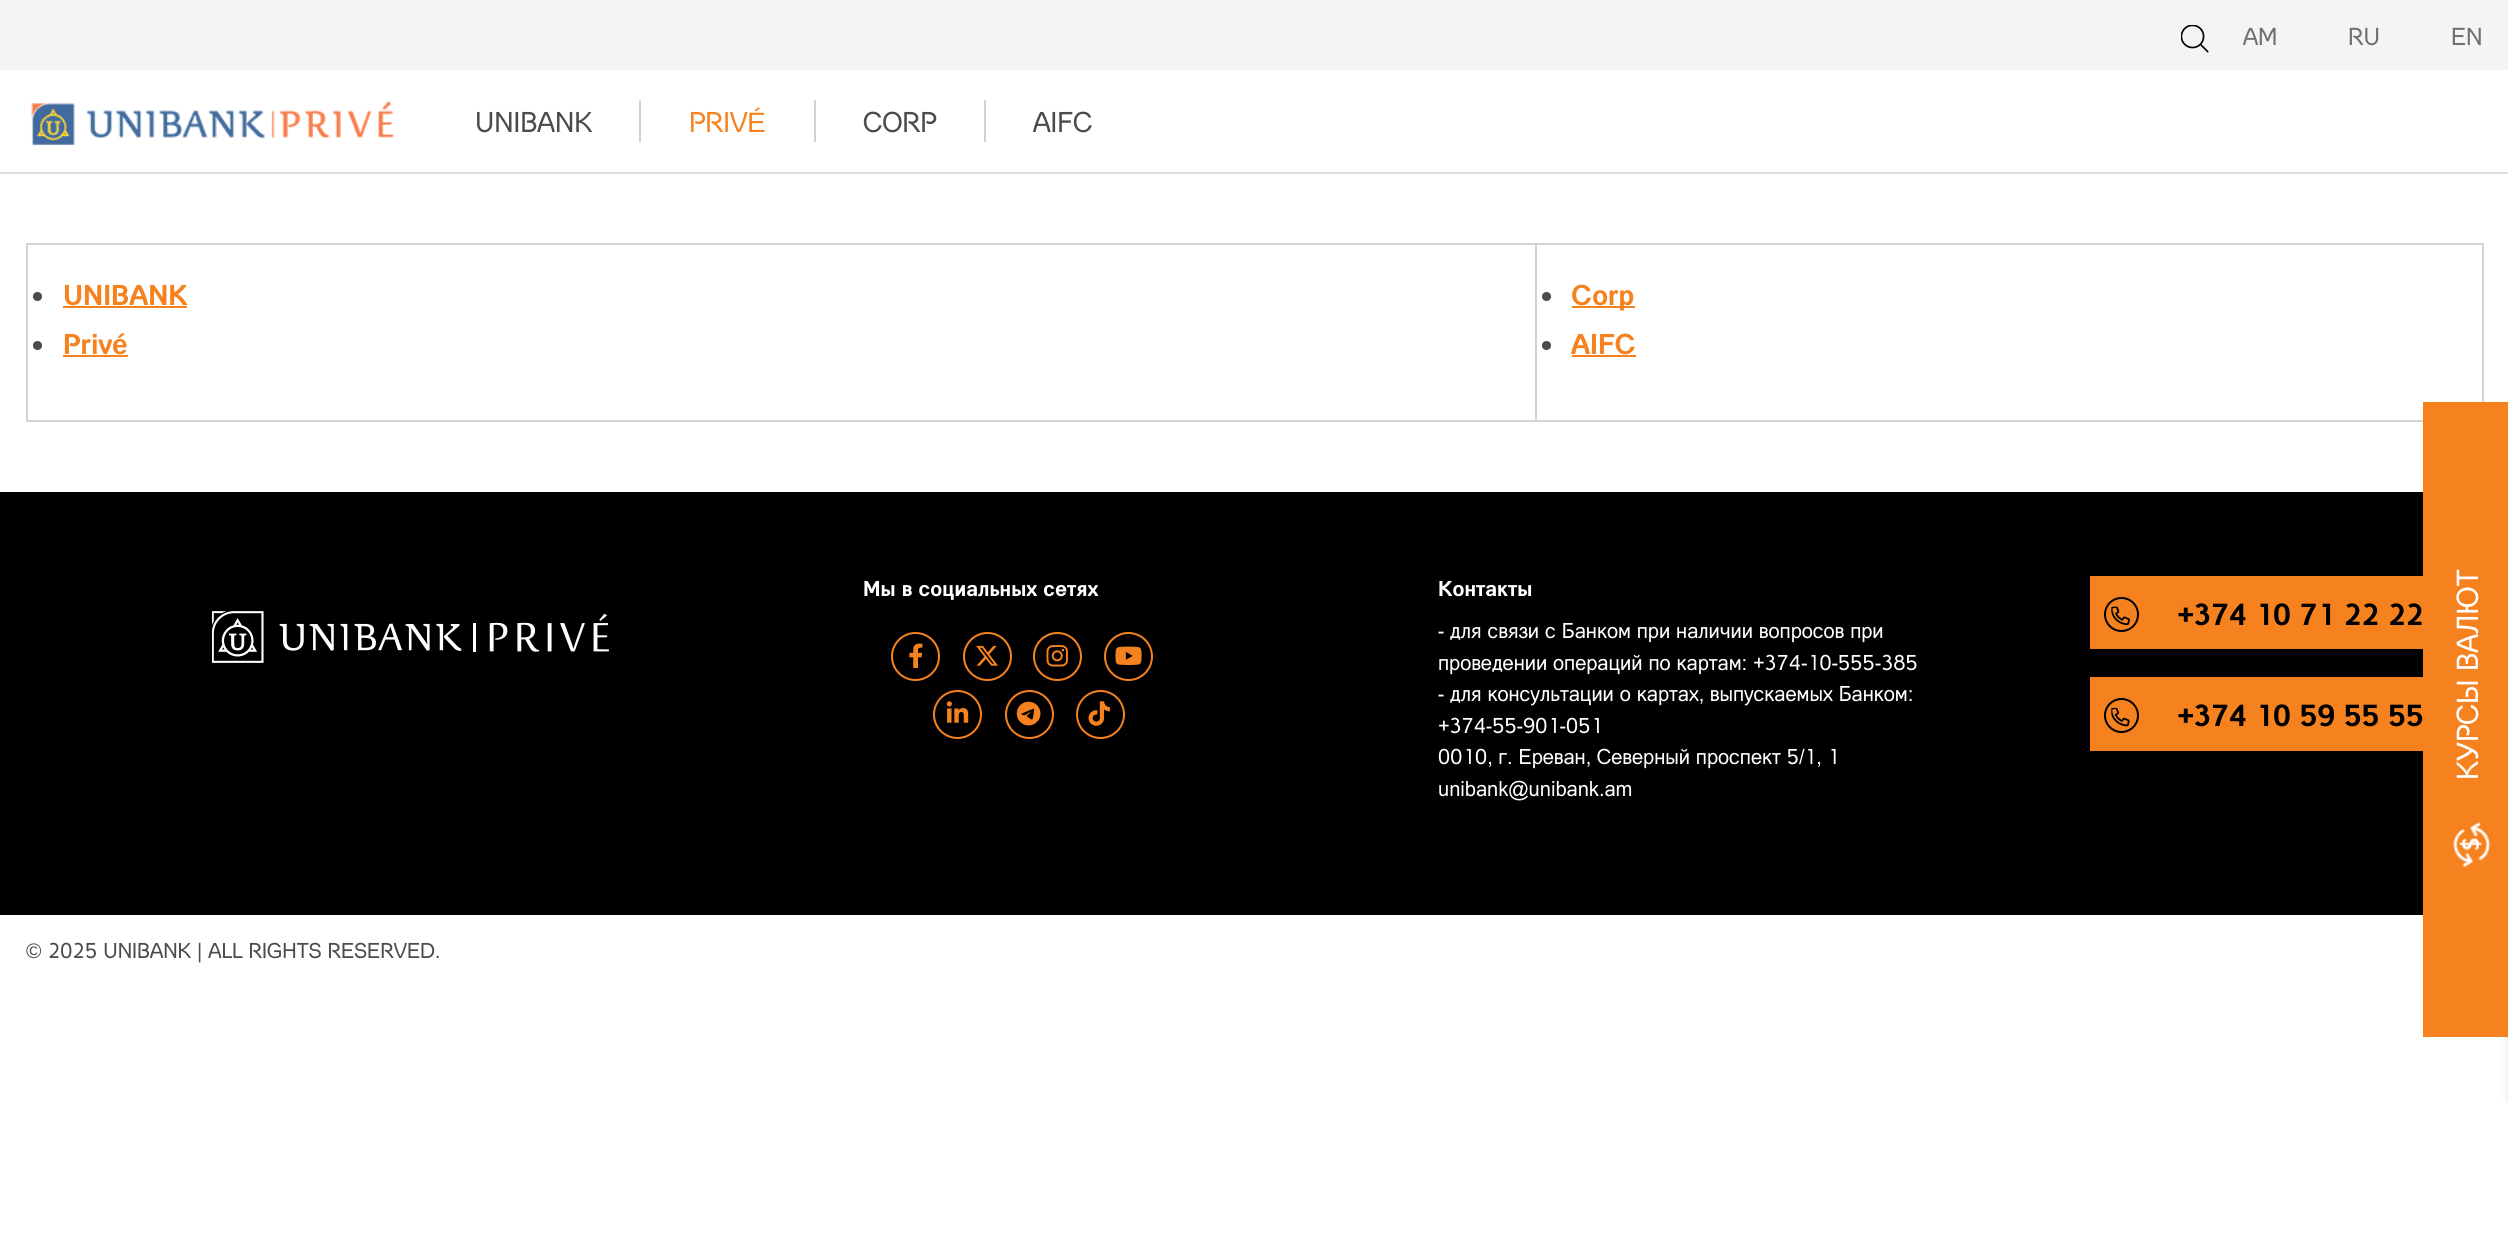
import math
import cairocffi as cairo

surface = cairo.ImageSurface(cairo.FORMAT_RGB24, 2508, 1254)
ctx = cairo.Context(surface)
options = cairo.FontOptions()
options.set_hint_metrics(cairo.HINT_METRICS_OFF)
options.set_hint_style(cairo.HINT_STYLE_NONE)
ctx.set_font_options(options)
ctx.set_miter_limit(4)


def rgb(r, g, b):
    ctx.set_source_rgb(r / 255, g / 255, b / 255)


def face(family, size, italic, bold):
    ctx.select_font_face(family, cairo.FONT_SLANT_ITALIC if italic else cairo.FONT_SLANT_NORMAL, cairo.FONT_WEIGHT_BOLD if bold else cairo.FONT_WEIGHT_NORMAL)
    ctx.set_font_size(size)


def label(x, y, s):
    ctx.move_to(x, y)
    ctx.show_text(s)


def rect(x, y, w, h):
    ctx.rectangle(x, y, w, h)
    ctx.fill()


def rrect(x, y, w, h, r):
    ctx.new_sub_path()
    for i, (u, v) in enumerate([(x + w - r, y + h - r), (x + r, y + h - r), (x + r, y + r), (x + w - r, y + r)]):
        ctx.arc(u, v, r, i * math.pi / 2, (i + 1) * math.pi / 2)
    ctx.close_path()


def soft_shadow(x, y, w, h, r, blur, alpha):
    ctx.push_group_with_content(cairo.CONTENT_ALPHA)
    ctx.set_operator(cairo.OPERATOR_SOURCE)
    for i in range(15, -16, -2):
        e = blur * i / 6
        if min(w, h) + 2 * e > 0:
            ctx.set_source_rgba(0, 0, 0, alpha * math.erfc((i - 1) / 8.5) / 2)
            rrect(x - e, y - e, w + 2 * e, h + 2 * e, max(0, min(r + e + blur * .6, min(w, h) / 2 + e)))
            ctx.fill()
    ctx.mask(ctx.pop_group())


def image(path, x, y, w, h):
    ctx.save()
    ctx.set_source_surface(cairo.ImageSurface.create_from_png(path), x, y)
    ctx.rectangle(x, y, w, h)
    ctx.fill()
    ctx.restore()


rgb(255, 255, 255)
ctx.paint()
rgb(245, 244, 244)
rect(0, 0, 2508, 70)
image('image0.png', 2181, 25, 28, 28)
face('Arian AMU', 24, 0, 0)
rgb(112, 112, 112)
label(2243, 45, 'AM')
label(2348, 45, 'RU')
label(2451, 45, 'EN')
rgb(222, 222, 222)
rect(0, 172, 2508, 2)
image('image1.png', 31, 100, 363, 46)
rgb(211, 211, 211)
rect(639, 100, 2, 42)
face('Arian AMU', 28, 0, 0)
rgb(75, 75, 75)
label(475, 132, 'UNIBANK')
rgb(211, 211, 211)
rect(814, 100, 2, 42)
rgb(245, 130, 31)
label(689, 132, 'PRIV')
face('Liberation Sans', 28, 0, 0)
label(747, 132, 'É')
rgb(211, 211, 211)
rect(984, 100, 2, 42)
face('Arian AMU', 28, 0, 0)
rgb(75, 75, 75)
label(863, 132, 'CORP')
label(1033, 132, 'AIFC')
rgb(212, 212, 212)
rect(1535, 243, 948, 2)
rect(1535, 420, 888, 2)
rect(1535, 243, 2, 179)
rect(26, 243, 1511, 2)
rect(26, 420, 1511, 2)
rect(26, 243, 2, 179)
rgb(75, 75, 75)
ctx.new_path()
ctx.arc(37.5, 296.5, 4.5, 0, 2 * math.pi)
ctx.fill()
face('Arian AMU', 28, 0, 1)
rgb(245, 130, 31)
label(63, 305, 'UNIBANK')
rect(63, 306, 124, 2)
rgb(75, 75, 75)
ctx.new_path()
ctx.arc(37.5, 345.5, 4.5, 0, 2 * math.pi)
ctx.fill()
rgb(245, 130, 31)
label(63, 354, 'Priv')
face('Liberation Sans', 28, 0, 1)
label(112, 354, 'é')
rect(63, 355, 65, 2)
rgb(212, 212, 212)
rect(2482, 243, 2, 159)
rgb(75, 75, 75)
ctx.new_path()
ctx.arc(1546.5, 296.5, 4.5, 0, 2 * math.pi)
ctx.fill()
rgb(245, 130, 31)
rect(1572, 306, 63, 2)
face('Arian AMU', 28, 0, 1)
label(1571, 305, 'Corp')
rgb(75, 75, 75)
ctx.new_path()
ctx.arc(1546.5, 345.5, 4.5, 0, 2 * math.pi)
ctx.fill()
rgb(245, 130, 31)
label(1571, 354, 'AIFC')
rect(1572, 355, 64, 2)
rgb(0, 0, 0)
rect(0, 492, 2423, 423)
image('image2.png', 212, 611, 397, 52)
face('Arian AMU', 21, 0, 1)
rgb(255, 255, 255)
label(863, 596, 'Мы в социальных сетях')
ctx.new_path()
ctx.arc(915.5, 656.5, 23.5, 0, 2 * math.pi)
rgb(245, 130, 31)
ctx.stroke()
image('image3.png', 909, 643, 14, 26)
ctx.arc(987.5, 656.5, 23.5, 0, 2 * math.pi)
ctx.stroke()
image('image4.png', 976, 645, 22, 21)
ctx.arc(1057.5, 656.5, 23.5, 0, 2 * math.pi)
ctx.stroke()
image('image5.png', 1046, 645, 22, 22)
ctx.arc(1128.5, 656.5, 23.5, 0, 2 * math.pi)
ctx.stroke()
image('image6.png', 1115, 646, 27, 19)
ctx.arc(957.5, 714.5, 23.5, 0, 2 * math.pi)
ctx.stroke()
image('image7.png', 946, 701, 23, 22)
ctx.arc(1029.5, 714.5, 23.5, 0, 2 * math.pi)
ctx.stroke()
image('image8.png', 1016, 701, 25, 25)
ctx.arc(1100.5, 714.5, 23.5, 0, 2 * math.pi)
ctx.stroke()
image('image9.png', 1088, 701, 22, 25)
rgb(255, 255, 255)
label(1438, 596, 'Контакты')
face('Arian AMU', 21, 0, 0)
label(1438, 638, '- для связи с Банком при наличии вопросов при')
label(1438, 670, 'проведении операций по картам: +374-10-555-385')
label(1438, 701, '- для консультации о картах, выпускаемых Банком:')
label(1438, 733, '+374-55-901-051')
label(1438, 764, '0010, г. Ереван, Северный проспект 5/1, 1')
label(1438, 796, 'unibank@unibank.am')
rgb(245, 130, 31)
rect(2090, 576, 333, 73)
ctx.new_path()
ctx.arc(2121.5, 614.5, 16.5, 0, 2 * math.pi)
rgb(0, 0, 0)
ctx.stroke()
image('image10.png', 2111, 606, 19, 20)
face('Arian AMU', 29.75, 0, 1)
label(2177, 625, '+374 10 71 22 22')
rgb(245, 130, 31)
rect(2090, 677, 333, 74)
ctx.new_path()
ctx.arc(2121.5, 715.5, 16.5, 0, 2 * math.pi)
rgb(0, 0, 0)
ctx.stroke()
image('image11.png', 2111, 707, 19, 20)
label(2177, 726, '+374 10 59 55 55')
rgb(0, 0, 0)
soft_shadow(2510, 408, 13, 691, 0, 5, 0.16)
rgb(245, 130, 31)
rect(2423, 402, 85, 635)
face('Arian AMU', 29.75, 0, 0)
rgb(255, 255, 255)
ctx.save()
ctx.translate(2478, 780)
ctx.rotate(-90 * math.pi / 180)
label(0, 0, 'КУРСЫ ВАЛЮТ')
ctx.restore()
image('image12.png', 2453, 822, 38, 45)
face('Liberation Sans', 21, 0, 0)
rgb(75, 75, 75)
label(26, 958, '©')
face('Arian AMU', 21, 0, 0)
label(48, 958, '2025 UNIBANK | ALL RIGHTS RESERVED.')
surface.write_to_png('render.png')
